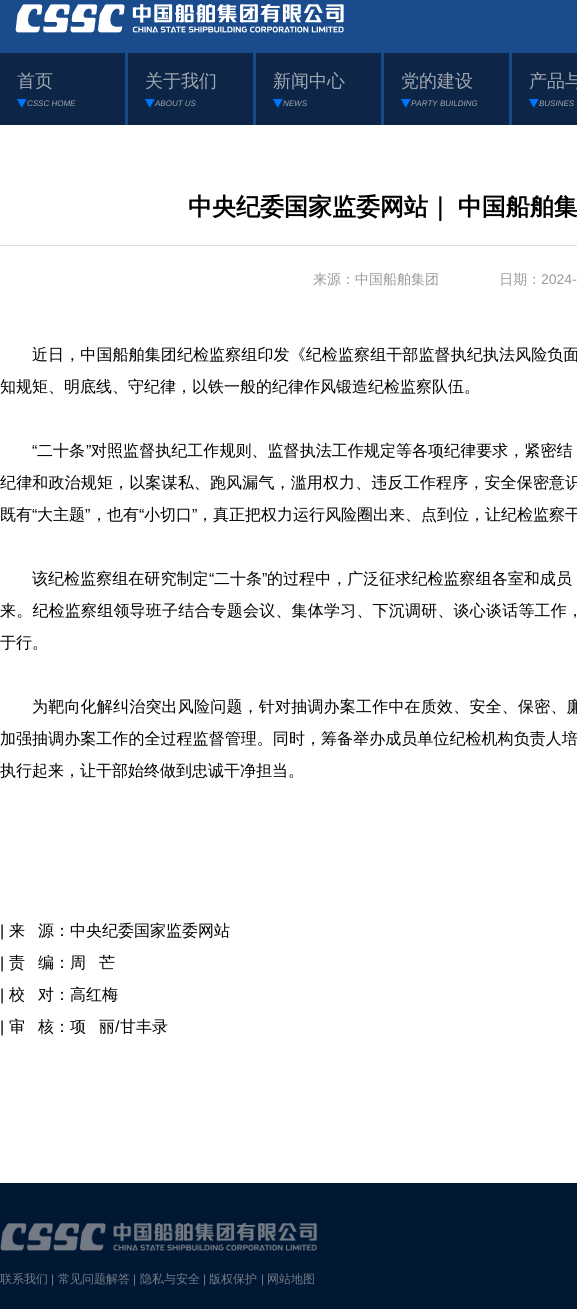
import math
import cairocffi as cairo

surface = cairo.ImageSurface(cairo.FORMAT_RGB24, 577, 1309)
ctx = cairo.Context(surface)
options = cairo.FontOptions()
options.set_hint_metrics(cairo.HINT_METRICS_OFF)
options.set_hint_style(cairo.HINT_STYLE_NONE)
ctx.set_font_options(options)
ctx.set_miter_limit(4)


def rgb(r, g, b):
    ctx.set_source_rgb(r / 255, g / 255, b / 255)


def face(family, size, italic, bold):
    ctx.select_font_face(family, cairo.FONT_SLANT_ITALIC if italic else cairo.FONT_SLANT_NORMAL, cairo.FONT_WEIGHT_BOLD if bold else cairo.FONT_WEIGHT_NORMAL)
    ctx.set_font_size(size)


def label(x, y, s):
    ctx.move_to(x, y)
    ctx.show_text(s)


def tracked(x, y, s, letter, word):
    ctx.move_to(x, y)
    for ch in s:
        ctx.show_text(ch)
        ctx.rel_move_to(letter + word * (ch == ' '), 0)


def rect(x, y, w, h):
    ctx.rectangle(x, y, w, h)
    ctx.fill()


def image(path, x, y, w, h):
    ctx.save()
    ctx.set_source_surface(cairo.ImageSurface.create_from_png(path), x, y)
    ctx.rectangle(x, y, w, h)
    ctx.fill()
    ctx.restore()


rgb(255, 255, 255)
ctx.paint()
rgb(26, 75, 141)
rect(0, 0, 577, 53)
image('image0.png', 15, 4, 329, 29)
rect(125, 53, 387, 72)
rgb(13, 38, 71)
rect(0, 53, 125, 72)
face('WenQuanYi Zen Hei Medium', 18, 0, 0)
rgb(162, 168, 178)
label(17, 87, '首页')
image('image1.png', 17, 99, 10, 9)
face('Liberation Sans', 8, 1, 0)
label(27, 106, 'CSSC HOME')
rgb(13, 38, 71)
rect(128, 53, 125, 72)
face('WenQuanYi Zen Hei Medium', 18, 0, 0)
rgb(162, 168, 178)
label(145, 87, '关于我们')
image('image1.png', 145, 99, 10, 9)
face('Liberation Sans', 8, 1, 0)
label(155, 106, 'ABOUT US')
rgb(13, 38, 71)
rect(256, 53, 125, 72)
face('WenQuanYi Zen Hei Medium', 18, 0, 0)
rgb(162, 168, 178)
label(273, 87, '新闻中心')
image('image1.png', 273, 99, 10, 9)
face('Liberation Sans', 8, 1, 0)
label(283, 106, 'NEWS')
rgb(13, 38, 71)
rect(384, 53, 125, 72)
face('WenQuanYi Zen Hei Medium', 18, 0, 0)
rgb(162, 168, 178)
label(401, 87, '党的建设')
image('image1.png', 401, 99, 10, 9)
face('Liberation Sans', 8, 1, 0)
label(411, 106, 'PARTY BUILDING')
rgb(13, 38, 71)
rect(512, 53, 65, 72)
face('WenQuanYi Zen Hei Medium', 18, 0, 0)
rgb(162, 168, 178)
label(529, 87, '产品与')
image('image1.png', 529, 99, 10, 9)
face('Liberation Sans', 8, 1, 0)
label(539, 106, 'BUSINES')
rgb(221, 221, 221)
rect(0, 245, 577, 1)
face('WenQuanYi Zen Hei', 24, 0, 1)
rgb(0, 0, 0)
tracked(188, 215, '中央纪委国家监委网站｜ 中国船舶集', 0, -1)
face('WenQuanYi Zen Hei Medium', 14, 0, 0)
rgb(153, 153, 153)
label(313, 284, '来源：中国船舶集团 　　　　日期：')
face('Liberation Sans', 14, 0, 0)
label(541, 284, '2024-')
face('WenQuanYi Zen Hei Medium', 16, 0, 0)
rgb(0, 0, 0)
tracked(32, 360, '近日，中国船舶集团纪检监察组印发《纪检监察组干部监督执纪执法风险负面', 0.1, 0)
label(0, 392, '知规矩、明底线、守纪律，以铁一般的纪律作风锻造纪检监察队伍。')
face('Liberation Sans', 16, 0, 0)
tracked(32, 456, '“', 0.05, 0)
face('WenQuanYi Zen Hei Medium', 16, 0, 0)
tracked(37, 456, '二十条', 0.05, 0)
face('Liberation Sans', 16, 0, 0)
tracked(86, 456, '”', 0.05, 0)
face('WenQuanYi Zen Hei Medium', 16, 0, 0)
tracked(91, 456, '对照监督执纪工作规则、监督执法工作规定等各项纪律要求，紧密结', 0.05, 0)
tracked(0, 488, '纪律和政治规矩，以案谋私、跑风漏气，滥用权力、违反工作程序，安全保密意识', 0.15, 0)
label(0, 520, '既有')
face('Liberation Sans', 16, 0, 0)
label(32, 520, '“')
face('WenQuanYi Zen Hei Medium', 16, 0, 0)
label(37, 520, '大主题')
face('Liberation Sans', 16, 0, 0)
label(85, 520, '”')
face('WenQuanYi Zen Hei Medium', 16, 0, 0)
label(91, 520, '，也有')
face('Liberation Sans', 16, 0, 0)
label(139, 520, '“')
face('WenQuanYi Zen Hei Medium', 16, 0, 0)
label(144, 520, '小切口')
face('Liberation Sans', 16, 0, 0)
label(192, 520, '”')
face('WenQuanYi Zen Hei Medium', 16, 0, 0)
label(197, 520, '，真正把权力运行风险圈出来、点到位，让纪检监察干')
tracked(32, 584, '该纪检监察组在研究制定', 0.05, 0)
face('Liberation Sans', 16, 0, 0)
tracked(209, 584, '“', 0.05, 0)
face('WenQuanYi Zen Hei Medium', 16, 0, 0)
tracked(214, 584, '二十条', 0.05, 0)
face('Liberation Sans', 16, 0, 0)
tracked(262, 584, '”', 0.05, 0)
face('WenQuanYi Zen Hei Medium', 16, 0, 0)
tracked(267, 584, '的过程中，广泛征求纪检监察组各室和成员', 0.05, 0)
tracked(0, 616, '来。纪检监察组领导班子结合专题会议、集体学习、下沉调研、谈心谈话等工作，', 0.2, 0)
label(0, 648, '于行。')
tracked(32, 712, '为靶向化解纠治突出风险问题，针对抽调办案工作中在质效、安全、保密、廉', 0.2, 0)
tracked(0, 744, '加强抽调办案工作的全过程监督管理。同时，筹备举办成员单位纪检机构负责人培', 0.05, 0)
label(0, 776, '执行起来，让干部始终做到忠诚干净担当。')
face('Liberation Sans', 16, 0, 0)
label(0, 936, '|')
face('WenQuanYi Zen Hei Medium', 16, 0, 0)
label(9, 936, '来')
label(38, 936, '源：中央纪委国家监委网站')
face('Liberation Sans', 16, 0, 0)
label(0, 968, '|')
face('WenQuanYi Zen Hei Medium', 16, 0, 0)
label(9, 968, '责')
label(38, 968, '编：周')
label(99, 968, '芒')
face('Liberation Sans', 16, 0, 0)
label(0, 1000, '|')
face('WenQuanYi Zen Hei Medium', 16, 0, 0)
label(9, 1000, '校')
label(38, 1000, '对：高红梅')
face('Liberation Sans', 16, 0, 0)
label(0, 1032, '|')
face('WenQuanYi Zen Hei Medium', 16, 0, 0)
label(9, 1032, '审')
label(38, 1032, '核：项')
label(99, 1032, '丽')
face('Liberation Sans', 16, 0, 0)
label(115, 1032, '/')
face('WenQuanYi Zen Hei Medium', 16, 0, 0)
label(120, 1032, '甘丰录')
rgb(0, 24, 52)
rect(0, 1183, 577, 126)
image('image2.png', 0, 1223, 317, 28)
face('WenQuanYi Zen Hei Medium', 12, 0, 0)
rgb(116, 123, 134)
label(0, 1283, '联系我们')
face('Liberation Sans', 12, 0, 0)
label(51, 1283, '|')
face('WenQuanYi Zen Hei Medium', 12, 0, 0)
label(58, 1283, '常见问题解答')
face('Liberation Sans', 12, 0, 0)
label(133, 1283, '|')
face('WenQuanYi Zen Hei Medium', 12, 0, 0)
label(140, 1283, '隐私与安全')
face('Liberation Sans', 12, 0, 0)
label(203, 1283, '|')
face('WenQuanYi Zen Hei Medium', 12, 0, 0)
label(209, 1283, '版权保护')
face('Liberation Sans', 12, 0, 0)
label(261, 1283, '|')
face('WenQuanYi Zen Hei Medium', 12, 0, 0)
label(267, 1283, '网站地图')
surface.write_to_png('render.png')
